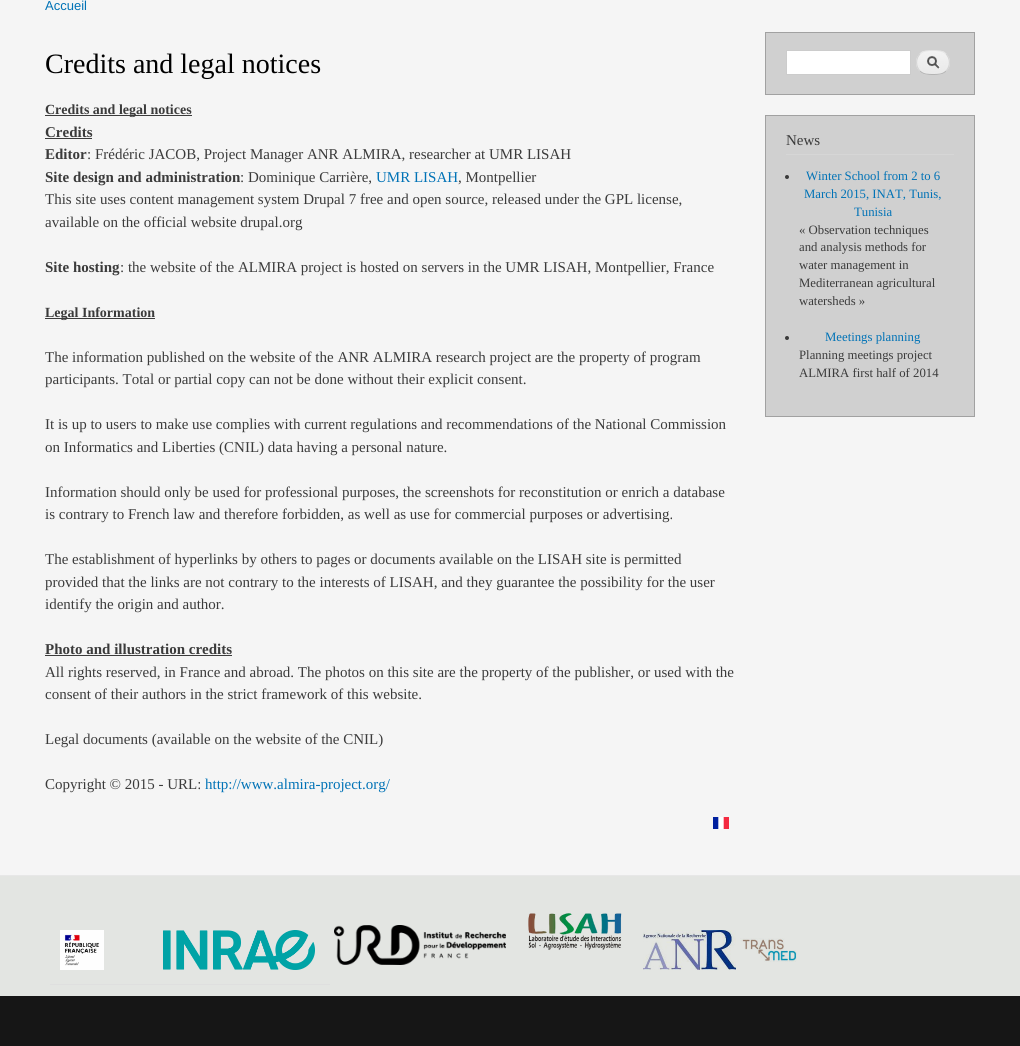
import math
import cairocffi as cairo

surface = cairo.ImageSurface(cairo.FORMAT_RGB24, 1020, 1046)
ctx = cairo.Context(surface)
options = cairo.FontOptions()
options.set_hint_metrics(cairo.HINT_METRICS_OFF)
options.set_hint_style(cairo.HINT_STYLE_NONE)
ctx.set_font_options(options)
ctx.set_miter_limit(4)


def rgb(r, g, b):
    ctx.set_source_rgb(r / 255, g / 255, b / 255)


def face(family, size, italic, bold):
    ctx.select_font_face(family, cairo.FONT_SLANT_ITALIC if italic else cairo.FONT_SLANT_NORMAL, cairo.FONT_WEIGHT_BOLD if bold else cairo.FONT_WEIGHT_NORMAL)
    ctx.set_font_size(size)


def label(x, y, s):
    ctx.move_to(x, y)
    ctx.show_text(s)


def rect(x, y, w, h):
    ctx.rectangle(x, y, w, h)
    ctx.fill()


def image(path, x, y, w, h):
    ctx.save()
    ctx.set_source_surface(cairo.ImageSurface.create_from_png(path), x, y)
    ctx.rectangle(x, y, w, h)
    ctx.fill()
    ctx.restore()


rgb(245, 245, 245)
ctx.paint()
face('Liberation Sans', 13, 0, 0)
rgb(0, 114, 182)
label(45, 10, 'Accueil')
face('Liberation Serif', 28, 0, 0)
rgb(0, 0, 0)
label(45, 73, 'Credits and legal notices')
rgb(59, 59, 59)
rect(45, 115, 147, 1)
face('Liberation Serif', 14, 0, 1)
label(45, 114, 'Credits and legal notices')
face('Liberation Serif', 15, 0, 1)
label(45, 137, 'Credits')
rect(45, 138, 47, 1)
label(45, 159, 'Editor')
face('Liberation Serif', 15, 0, 0)
label(87, 159, ': Frédéric JACOB, Project Manager ANR ALMIRA, researcher at UMR LISAH')
face('Liberation Serif', 15, 0, 1)
label(45, 182, 'Site design and administration')
face('Liberation Serif', 15, 0, 0)
label(240, 182, ': Dominique Carrière,')
rgb(0, 114, 182)
label(376, 182, 'UMR LISAH')
rgb(59, 59, 59)
label(458, 182, ', Montpellier')
label(45, 204, 'This site uses content management system Drupal 7 free and open source, released under the GPL license,')
label(45, 227, 'available on the official website drupal.org')
face('Liberation Serif', 15, 0, 1)
label(45, 272, 'Site hosting')
face('Liberation Serif', 15, 0, 0)
label(120, 272, ': the website of the ALMIRA project is hosted on servers in the UMR LISAH, Montpellier, France')
rect(45, 318, 110, 1)
face('Liberation Serif', 14, 0, 1)
label(45, 317, 'Legal Information')
face('Liberation Serif', 15, 0, 0)
label(45, 362, 'The information published on the website of the ANR ALMIRA research project are the property of program')
label(45, 384, 'participants. Total or partial copy can not be done without their explicit consent.')
label(45, 429, 'It is up to users to make use complies with current regulations and recommendations of the National Commission')
label(45, 452, 'on Informatics and Liberties (CNIL) data having a personal nature.')
label(45, 497, 'Information should only be used for professional purposes, the screenshots for reconstitution or enrich a database')
label(45, 519, 'is contrary to French law and therefore forbidden, as well as use for commercial purposes or advertising.')
label(45, 564, 'The establishment of hyperlinks by others to pages or documents available on the LISAH site is permitted')
label(45, 587, 'provided that the links are not contrary to the interests of LISAH, and they guarantee the possibility for the user')
label(45, 609, 'identify the origin and author.')
face('Liberation Serif', 15, 0, 1)
label(45, 654, 'Photo and illustration credits')
rect(45, 655, 187, 1)
face('Liberation Serif', 15, 0, 0)
label(45, 677, 'All rights reserved, in France and abroad. The photos on this site are the property of the publisher, or used with the')
label(45, 699, 'consent of their authors in the strict framework of this website.')
label(45, 744, 'Legal documents (available on the website of the CNIL)')
label(45, 789, 'Copyright © 2015 - URL:')
rgb(0, 114, 182)
label(205, 789, 'http://www.almira-project.org/')
image('image0.png', 713, 817, 16, 12)
rgb(208, 208, 208)
ctx.rectangle(765.5, 32.5, 209, 62)
ctx.fill_preserve()
rgb(161, 161, 161)
ctx.set_line_width(1)
ctx.stroke()
rgb(255, 255, 255)
ctx.rectangle(786.5, 50.5, 124, 24)
ctx.fill_preserve()
rgb(204, 204, 204)
ctx.stroke()
image('image1.png', 916, 51, 34, 24)
ctx.new_path()
ctx.move_to(920, 54)
ctx.curve_to(923.5, 50.5, 928, 50.5, 933, 50.5)
ctx.curve_to(938, 50.5, 942.5, 50.5, 946, 54)
rgb(228, 228, 228)
ctx.stroke()
ctx.new_path()
ctx.move_to(946, 54)
ctx.curve_to(950.5, 58.5, 950.5, 66.5, 946, 71)
rgb(210, 210, 210)
ctx.stroke()
ctx.new_path()
ctx.move_to(946, 71)
ctx.curve_to(942.5, 74.5, 938, 74.5, 933, 74.5)
ctx.curve_to(928, 74.5, 923.5, 74.5, 920, 71)
rgb(180, 180, 180)
ctx.stroke()
ctx.new_path()
ctx.move_to(920, 71)
ctx.curve_to(915.5, 66.5, 915.5, 58.5, 920, 54)
rgb(210, 210, 210)
ctx.stroke()
rgb(208, 208, 208)
ctx.rectangle(765.5, 115.5, 209, 301)
ctx.fill_preserve()
rgb(161, 161, 161)
ctx.stroke()
rgb(214, 214, 214)
rect(786, 154, 168, 1)
rgb(59, 59, 59)
label(786, 145, 'News')
ctx.new_path()
ctx.arc(787, 177, 2, 0, 2 * math.pi)
ctx.fill()
face('Liberation Serif', 12.75, 0, 0)
rgb(0, 114, 182)
label(806, 180, 'Winter School from 2 to 6')
label(804, 198, 'March 2015, INAT, Tunis,')
label(854, 216, 'Tunisia')
rgb(59, 59, 59)
label(799, 234, '« Observation techniques')
label(799, 251, 'and analysis methods for')
label(799, 269, 'water management in')
label(799, 287, 'Mediterranean agricultural')
label(799, 305, 'watersheds »')
ctx.new_path()
ctx.arc(787, 338, 2, 0, 2 * math.pi)
ctx.fill()
rgb(0, 114, 182)
label(825, 341, 'Meetings planning')
rgb(59, 59, 59)
label(799, 359, 'Planning meetings project')
label(799, 377, 'ALMIRA first half of 2014')
rgb(227, 229, 226)
rect(0, 876, 1020, 120)
rgb(231, 231, 231)
rect(0, 875, 1020, 1)
rgb(223, 223, 223)
rect(50, 984, 280, 1)
image('image2.png', 60, 930, 44, 40)
image('image3.png', 163, 930, 152, 40)
image('image4.png', 334, 925, 172, 40)
image('image5.png', 528, 913, 94, 37)
image('image6.png', 643, 930, 154, 40)
rgb(22, 22, 22)
rect(0, 996, 1020, 50)
surface.write_to_png('render.png')
